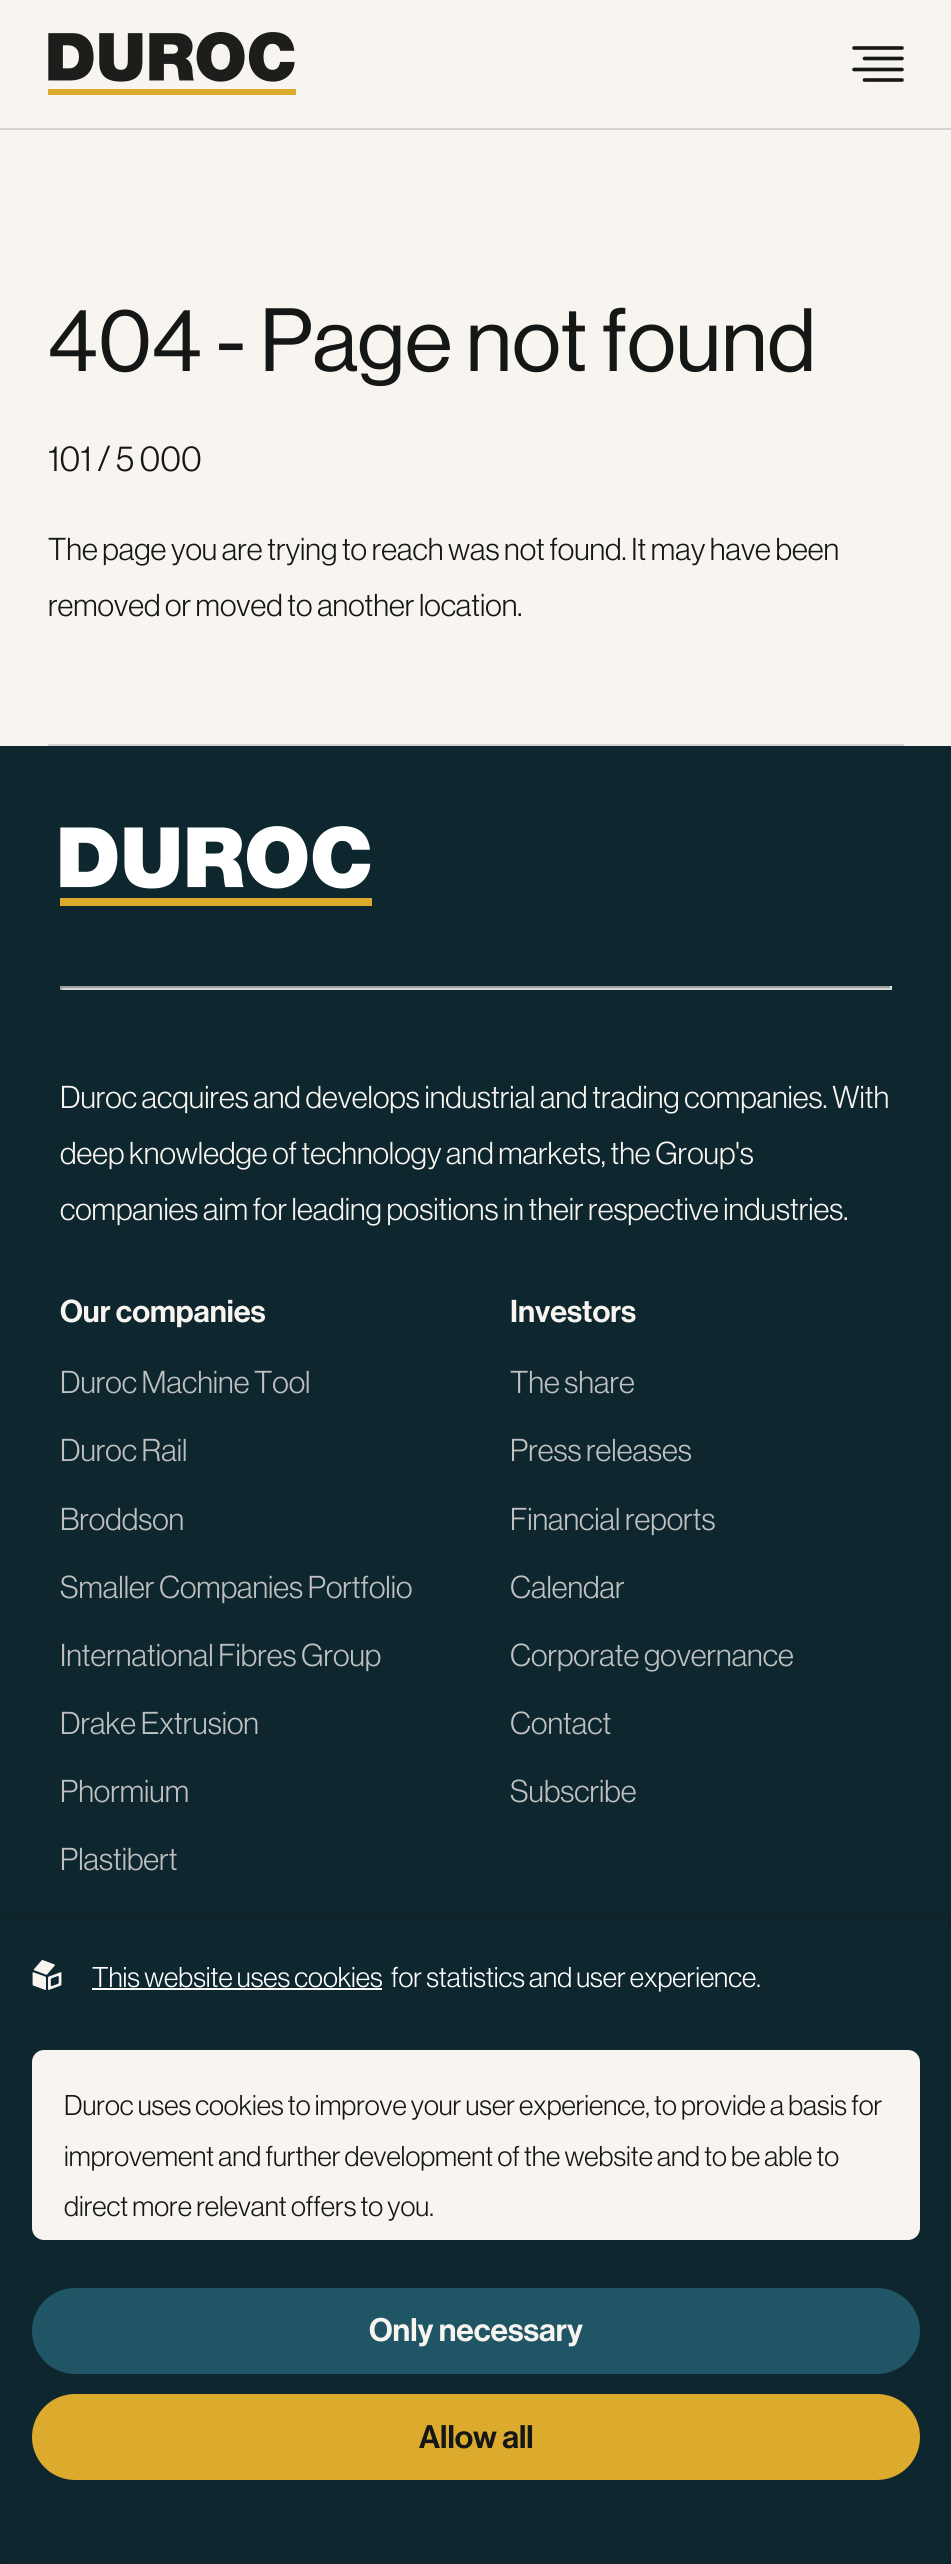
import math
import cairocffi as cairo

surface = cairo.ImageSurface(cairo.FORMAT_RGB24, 951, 2564)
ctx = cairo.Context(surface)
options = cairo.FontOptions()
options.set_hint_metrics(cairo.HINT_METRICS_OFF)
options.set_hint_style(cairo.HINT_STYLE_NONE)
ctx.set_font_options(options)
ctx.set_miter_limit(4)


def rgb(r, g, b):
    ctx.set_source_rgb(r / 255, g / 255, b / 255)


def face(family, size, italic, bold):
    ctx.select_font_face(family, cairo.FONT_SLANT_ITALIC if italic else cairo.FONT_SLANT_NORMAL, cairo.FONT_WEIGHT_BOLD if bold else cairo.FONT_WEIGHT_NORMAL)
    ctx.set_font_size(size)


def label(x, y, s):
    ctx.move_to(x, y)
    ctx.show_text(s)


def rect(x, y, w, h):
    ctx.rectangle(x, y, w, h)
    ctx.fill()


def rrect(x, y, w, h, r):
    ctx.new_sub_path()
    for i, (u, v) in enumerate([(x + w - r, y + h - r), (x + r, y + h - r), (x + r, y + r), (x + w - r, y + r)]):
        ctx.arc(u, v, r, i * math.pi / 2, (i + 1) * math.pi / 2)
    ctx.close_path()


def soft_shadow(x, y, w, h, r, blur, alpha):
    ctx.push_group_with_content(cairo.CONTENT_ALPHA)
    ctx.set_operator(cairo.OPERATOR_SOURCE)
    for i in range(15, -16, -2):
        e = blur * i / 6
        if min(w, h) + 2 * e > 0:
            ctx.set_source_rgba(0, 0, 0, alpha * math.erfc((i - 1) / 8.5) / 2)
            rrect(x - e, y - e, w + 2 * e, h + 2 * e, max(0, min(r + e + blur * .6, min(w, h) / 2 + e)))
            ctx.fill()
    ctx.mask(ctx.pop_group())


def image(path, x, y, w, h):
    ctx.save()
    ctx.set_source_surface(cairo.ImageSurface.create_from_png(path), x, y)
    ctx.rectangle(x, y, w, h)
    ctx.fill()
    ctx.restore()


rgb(248, 245, 241)
ctx.paint()
rgb(211, 211, 211)
rect(0, 128, 951, 2)
image('image0.png', 48, 32, 248, 63)
ctx.new_path()
ctx.move_to(902, 58.5)
ctx.line_to(864.5, 58.5)
ctx.move_to(902, 48)
ctx.line_to(854, 48)
ctx.move_to(902, 69.5)
ctx.line_to(854, 69.5)
ctx.move_to(902, 80)
ctx.line_to(864.5, 80)
rgb(21, 22, 22)
ctx.set_line_width(3.6)
ctx.set_line_cap(cairo.LINE_CAP_ROUND)
ctx.set_line_join(cairo.LINE_JOIN_ROUND)
ctx.stroke()
rgb(211, 211, 211)
rect(48, 744, 856, 2)
face('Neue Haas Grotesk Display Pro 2 Medium', 87.75, 0, 0)
rgb(21, 22, 22)
label(48, 371, '404 - Page not found')
face('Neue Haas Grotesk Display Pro', 35.5, 0, 0)
label(48, 471, '101 / 5 000')
face('Neue Haas Grotesk Display Pro', 31, 0, 0)
label(48, 560, 'The page you are trying to reach was not found. It may have been')
label(48, 616, 'removed or moved to another location.')
rgb(14, 38, 46)
rect(0, 746, 951, 1818)
image('image1.png', 60, 826, 312, 80)
rgb(159, 159, 159)
rect(60, 986, 832, 2)
rgb(238, 238, 238)
rect(890, 986, 2, 4)
rgb(211, 211, 211)
rect(60, 988, 832, 2)
rgb(159, 159, 159)
rect(60, 986, 2, 4)
rgb(248, 245, 241)
label(60, 1108, 'Duroc acquires and develops industrial and trading companies. With')
label(60, 1164, 'deep knowledge of technology and markets, the Group\'s')
label(60, 1220, 'companies aim for leading positions in their respective industries.')
face('Neue Haas Grotesk Display Pro Medium', 31, 0, 0)
label(60, 1322, 'Our companies')
face('Neue Haas Grotesk Display Pro', 31, 0, 0)
rgb(190, 193, 192)
label(60, 1393, 'Duroc Machine Tool')
label(60, 1461, 'Duroc Rail')
label(60, 1530, 'Broddson')
label(60, 1598, 'Smaller Companies Portfolio')
label(60, 1666, 'International Fibres Group')
label(60, 1734, 'Drake Extrusion')
label(60, 1802, 'Phormium')
label(60, 1870, 'Plastibert')
face('Neue Haas Grotesk Display Pro Medium', 31, 0, 0)
rgb(248, 245, 241)
label(510, 1322, 'Investors')
face('Neue Haas Grotesk Display Pro', 31, 0, 0)
rgb(190, 193, 192)
label(510, 1393, 'The share')
label(510, 1461, 'Press releases')
label(510, 1530, 'Financial reports')
label(510, 1598, 'Calendar')
label(510, 1666, 'Corporate governance')
label(510, 1734, 'Contact')
label(510, 1802, 'Subscribe')
rgb(0, 0, 0)
soft_shadow(4, 1924, 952, 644, 12, 10, 0.25)
rgb(14, 38, 46)
rrect(0, 1920, 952, 644, 12)
ctx.fill()
image('image2.png', 32, 1960, 30, 30)
face('Neue Haas Grotesk Display Pro', 28, 0, 0)
rgb(255, 255, 255)
label(92, 1987, 'This website uses cookies')
rect(92, 1988, 290, 2)
label(391, 1987, 'for statistics and user experience.')
rgb(248, 245, 241)
rrect(32, 2050, 888, 190, 12)
ctx.fill()
rgb(21, 22, 22)
label(64, 2115, 'Duroc uses cookies to improve your user experience, to provide a basis for')
label(64, 2166, 'improvement and further development of the website and to be able to')
label(64, 2216, 'direct more relevant offers to you.')
rgb(32, 85, 102)
rrect(32, 2288, 888, 86, 43)
ctx.fill()
face('Neue Haas Grotesk Display Pro Medium', 32, 0, 0)
rgb(248, 245, 241)
label(369, 2341, 'Only necessary')
rgb(220, 171, 46)
rrect(32, 2394, 888, 86, 43)
ctx.fill()
rgb(21, 22, 22)
label(419, 2448, 'Allow all')
surface.write_to_png('render.png')
